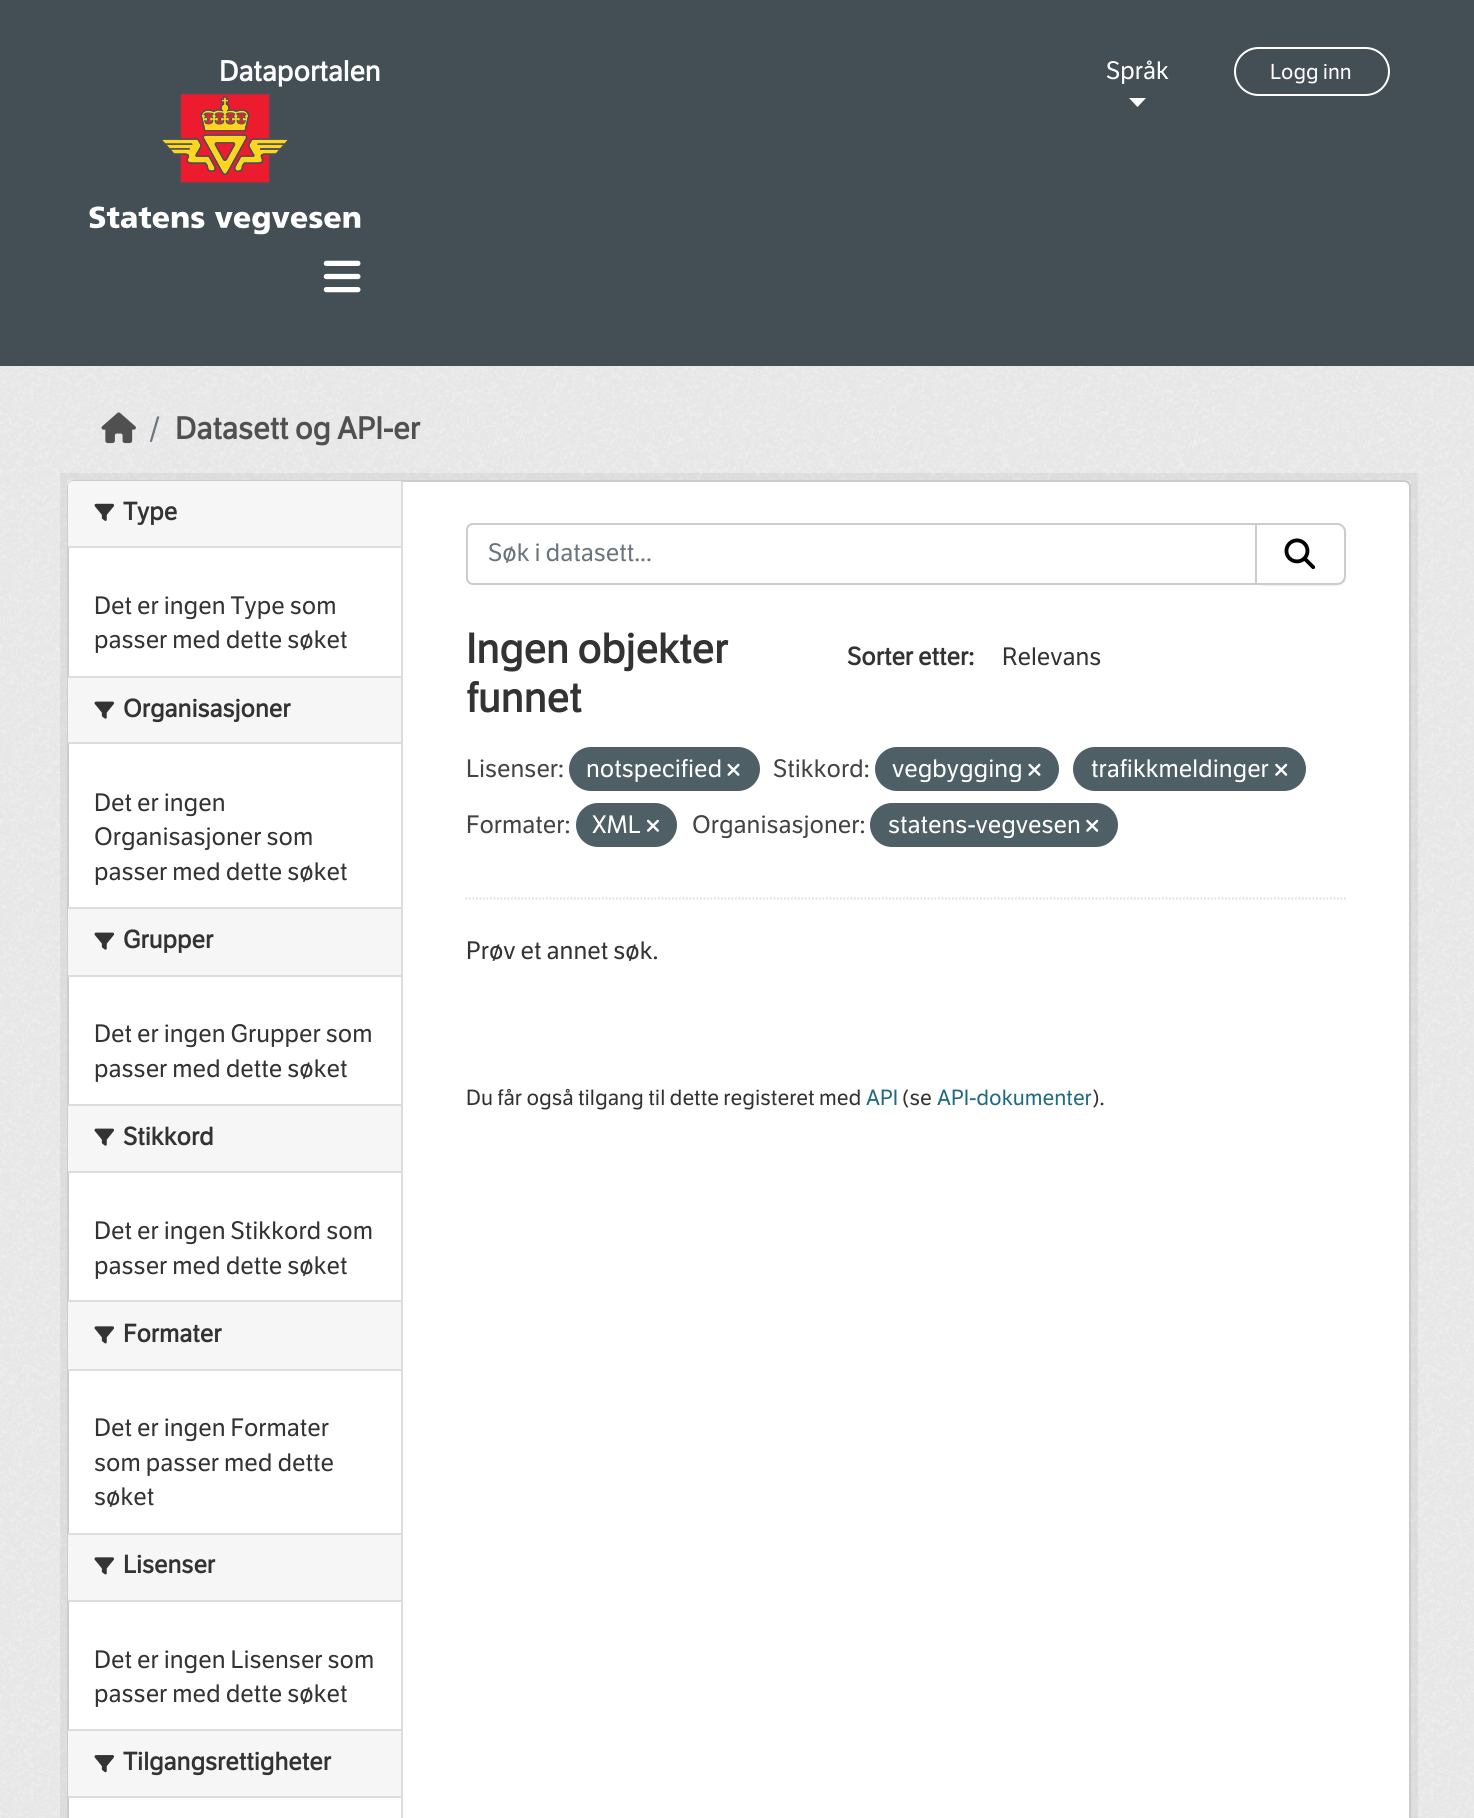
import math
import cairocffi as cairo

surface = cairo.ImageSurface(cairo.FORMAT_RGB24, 1474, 1818)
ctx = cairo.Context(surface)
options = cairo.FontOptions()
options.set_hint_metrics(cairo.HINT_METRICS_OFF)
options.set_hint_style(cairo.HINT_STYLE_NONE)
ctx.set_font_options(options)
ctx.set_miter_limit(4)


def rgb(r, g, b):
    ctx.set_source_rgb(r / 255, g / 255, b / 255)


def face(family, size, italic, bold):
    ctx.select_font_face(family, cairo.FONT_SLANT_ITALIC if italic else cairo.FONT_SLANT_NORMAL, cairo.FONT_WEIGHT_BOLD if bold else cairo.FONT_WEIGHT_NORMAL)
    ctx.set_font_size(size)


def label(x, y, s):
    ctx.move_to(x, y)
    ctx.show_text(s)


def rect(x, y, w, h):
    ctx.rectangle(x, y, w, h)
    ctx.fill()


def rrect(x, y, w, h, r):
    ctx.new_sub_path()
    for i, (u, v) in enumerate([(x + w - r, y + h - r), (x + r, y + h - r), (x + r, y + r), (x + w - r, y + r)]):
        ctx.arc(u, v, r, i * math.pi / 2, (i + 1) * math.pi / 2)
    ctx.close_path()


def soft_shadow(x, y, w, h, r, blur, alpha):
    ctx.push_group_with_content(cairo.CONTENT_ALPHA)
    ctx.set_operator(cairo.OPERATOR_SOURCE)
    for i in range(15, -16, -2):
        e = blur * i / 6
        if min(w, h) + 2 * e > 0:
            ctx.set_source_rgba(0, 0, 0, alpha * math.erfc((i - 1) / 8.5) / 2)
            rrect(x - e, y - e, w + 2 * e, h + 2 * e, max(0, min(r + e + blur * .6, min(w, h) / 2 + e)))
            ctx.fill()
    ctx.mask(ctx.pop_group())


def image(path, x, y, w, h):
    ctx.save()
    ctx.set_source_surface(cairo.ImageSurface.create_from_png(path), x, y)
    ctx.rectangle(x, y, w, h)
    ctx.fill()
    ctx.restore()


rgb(68, 79, 85)
ctx.paint()
face('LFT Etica', 28, 0, 1)
rgb(255, 255, 255)
label(219, 81, 'Dataportalen')
image('image0.png', 89, 93, 272, 142)
image('image1.png', 323, 260, 38, 33)
face('LFT Etica', 24.5, 0, 0)
label(1106, 79, 'Språk')
ctx.new_path()
ctx.move_to(1129, 98)
ctx.line_to(1146, 98)
ctx.line_to(1137.5, 107)
ctx.close_path()
ctx.fill()
rrect(1235, 48, 154, 47, 23.5)
ctx.stroke()
face('LFT Etica', 21, 0, 0)
label(1270, 79, 'Logg inn')
rgb(238, 238, 238)
rect(0, 366, 1474, 1452)
image('image2.png', 0, 366, 1474, 1452)
image('image3.png', 101, 412, 35, 32)
face('LFT Etica', 30.5, 0, 0)
rgb(108, 117, 125)
label(149, 439, '/')
face('LFT Etica', 30.5, 0, 1)
rgb(80, 80, 80)
label(175, 439, 'Datasett og API-er')
ctx.rectangle(63.5, 476.5, 1351, 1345)
ctx.set_source_rgba(0, 0, 0, 0.05)
ctx.set_line_width(7)
ctx.stroke()
rgb(255, 255, 255)
rrect(68, 481, 1342, 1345, 6)
ctx.fill_preserve()
rgb(204, 204, 204)
ctx.set_line_width(2)
ctx.stroke()
rgb(246, 246, 246)
ctx.new_path()
ctx.move_to(73, 481)
ctx.line_to(401, 481)
ctx.line_to(401, 548)
ctx.line_to(68, 548)
ctx.line_to(68, 486)
ctx.curve_to(68, 483, 70, 481, 73, 481)
ctx.close_path()
ctx.fill()
rgb(221, 221, 221)
rect(68, 546, 333, 2)
image('image4.png', 94, 503, 21, 18)
face('LFT Etica', 24.5, 0, 1)
rgb(51, 51, 51)
label(123, 520, 'Type')
face('LFT Etica', 24.5, 0, 0)
label(94, 614, 'Det er ingen Type som')
label(94, 648, 'passer med dette søket')
rgb(246, 246, 246)
rect(68, 678, 333, 64)
rgb(221, 221, 221)
rect(68, 676, 333, 2)
rect(68, 742, 333, 2)
image('image5.png', 94, 701, 21, 18)
face('LFT Etica', 24.5, 0, 1)
rgb(51, 51, 51)
label(123, 717, 'Organisasjoner')
face('LFT Etica', 24.5, 0, 0)
label(94, 811, 'Det er ingen')
label(94, 845, 'Organisasjoner som')
label(94, 880, 'passer med dette søket')
rgb(246, 246, 246)
rect(68, 909, 333, 66)
rgb(221, 221, 221)
rect(68, 907, 333, 2)
rect(68, 975, 333, 2)
image('image5.png', 94, 932, 21, 18)
face('LFT Etica', 24.5, 0, 1)
rgb(51, 51, 51)
label(123, 948, 'Grupper')
face('LFT Etica', 24.5, 0, 0)
label(94, 1042, 'Det er ingen Grupper som')
label(94, 1077, 'passer med dette søket')
rgb(246, 246, 246)
rect(68, 1106, 333, 65)
rgb(221, 221, 221)
rect(68, 1104, 333, 2)
rect(68, 1171, 333, 2)
image('image5.png', 94, 1128, 21, 18)
face('LFT Etica', 24.5, 0, 1)
rgb(51, 51, 51)
label(123, 1145, 'Stikkord')
face('LFT Etica', 24.5, 0, 0)
label(94, 1239, 'Det er ingen Stikkord som')
label(94, 1274, 'passer med dette søket')
rgb(246, 246, 246)
rect(68, 1302, 333, 67)
rgb(221, 221, 221)
rect(68, 1300, 333, 2)
rect(68, 1369, 333, 2)
image('image6.png', 94, 1326, 20, 18)
face('LFT Etica', 24.5, 0, 1)
rgb(51, 51, 51)
label(123, 1342, 'Formater')
face('LFT Etica', 24.5, 0, 0)
label(94, 1436, 'Det er ingen Formater')
label(94, 1471, 'som passer med dette')
label(94, 1505, 'søket')
rgb(246, 246, 246)
rect(68, 1535, 333, 65)
rgb(221, 221, 221)
rect(68, 1533, 333, 2)
rect(68, 1600, 333, 2)
image('image6.png', 94, 1557, 20, 18)
face('LFT Etica', 24.5, 0, 1)
rgb(51, 51, 51)
label(123, 1573, 'Lisenser')
face('LFT Etica', 24.5, 0, 0)
label(94, 1668, 'Det er ingen Lisenser som')
label(94, 1702, 'passer med dette søket')
rgb(246, 246, 246)
rect(68, 1731, 333, 65)
rgb(221, 221, 221)
rect(68, 1729, 333, 2)
rect(68, 1796, 333, 2)
image('image7.png', 94, 1755, 21, 18)
face('LFT Etica', 24.5, 0, 1)
rgb(51, 51, 51)
label(123, 1770, 'Tilgangsrettigheter')
rgb(221, 221, 221)
rect(401, 481, 2, 1337)
ctx.new_path()
ctx.move_to(465.5, 898.5)
ctx.line_to(1346, 898.5)
ctx.set_line_width(1.8)
ctx.set_dash([1.75, 1.75])
ctx.stroke()
ctx.new_path()
ctx.move_to(473, 524)
ctx.line_to(1256, 524)
ctx.line_to(1256, 584)
ctx.line_to(473, 584)
ctx.curve_to(469.5, 584, 467, 581.5, 467, 578)
ctx.line_to(467, 530)
ctx.curve_to(467, 526.5, 469.5, 524, 473, 524)
ctx.close_path()
rgb(204, 204, 204)
ctx.set_line_width(2)
ctx.set_dash([])
ctx.stroke()
face('LFT Etica', 24.5, 0, 0)
rgb(108, 117, 125)
label(488, 561, 'Søk i datasett...')
rgb(0, 0, 0)
soft_shadow(1255, 525, 91, 61, 9, 1, 0.07)
rgb(255, 255, 255)
ctx.new_path()
ctx.move_to(1256, 524)
ctx.line_to(1337, 524)
ctx.curve_to(1341.5, 524, 1345, 527.5, 1345, 532)
ctx.line_to(1345, 576)
ctx.curve_to(1345, 580.5, 1341.5, 584, 1337, 584)
ctx.line_to(1256, 584)
ctx.close_path()
ctx.fill_preserve()
rgb(204, 204, 204)
ctx.stroke()
image('image8.png', 1284, 538, 32, 32)
face('LFT Etica', 40.75, 0, 1)
rgb(51, 51, 51)
label(466, 663, 'Ingen objekter')
label(466, 712, 'funnet')
face('LFT Etica', 24.5, 0, 1)
label(847, 665, 'Sorter etter:')
face('LFT Etica', 24.5, 0, 0)
label(1002, 665, 'Relevans')
rgb(68, 68, 68)
label(466, 777, 'Lisenser:')
rgb(78, 95, 101)
rrect(569, 747, 191, 44, 22)
ctx.fill()
rgb(255, 255, 255)
label(586, 777, 'notspecified')
image('image9.png', 727, 763, 13, 13)
rgb(68, 68, 68)
label(773, 777, 'Stikkord:')
rgb(78, 95, 101)
rrect(875, 747, 184, 44, 22)
ctx.fill()
rgb(255, 255, 255)
label(892, 777, 'vegbygging')
image('image9.png', 1028, 763, 13, 13)
rgb(78, 95, 101)
rrect(1073, 747, 233, 44, 22)
ctx.fill()
rgb(255, 255, 255)
label(1091, 777, 'trafikkmeldinger')
image('image10.png', 1275, 763, 13, 13)
rgb(68, 68, 68)
label(466, 833, 'Formater:')
rgb(78, 95, 101)
rrect(576, 803, 101, 44, 22)
ctx.fill()
rgb(255, 255, 255)
label(592, 833, 'XML')
image('image11.png', 647, 819, 12, 13)
rgb(68, 68, 68)
label(692, 833, 'Organisasjoner:')
rgb(78, 95, 101)
rrect(870, 803, 248, 44, 22)
ctx.fill()
rgb(255, 255, 255)
label(888, 833, 'statens-vegvesen')
image('image10.png', 1086, 819, 13, 13)
rgb(51, 51, 51)
label(466, 959, 'Prøv et annet søk.')
face('LFT Etica', 21.4, 0, 0)
label(466, 1105, 'Du får også tilgang til dette registeret med')
rgb(32, 107, 130)
label(866, 1105, 'API')
rgb(51, 51, 51)
label(902, 1105, '(se')
rgb(32, 107, 130)
label(937, 1105, 'API-dokumenter')
rgb(51, 51, 51)
label(1092, 1105, ').')
surface.write_to_png('render.png')
